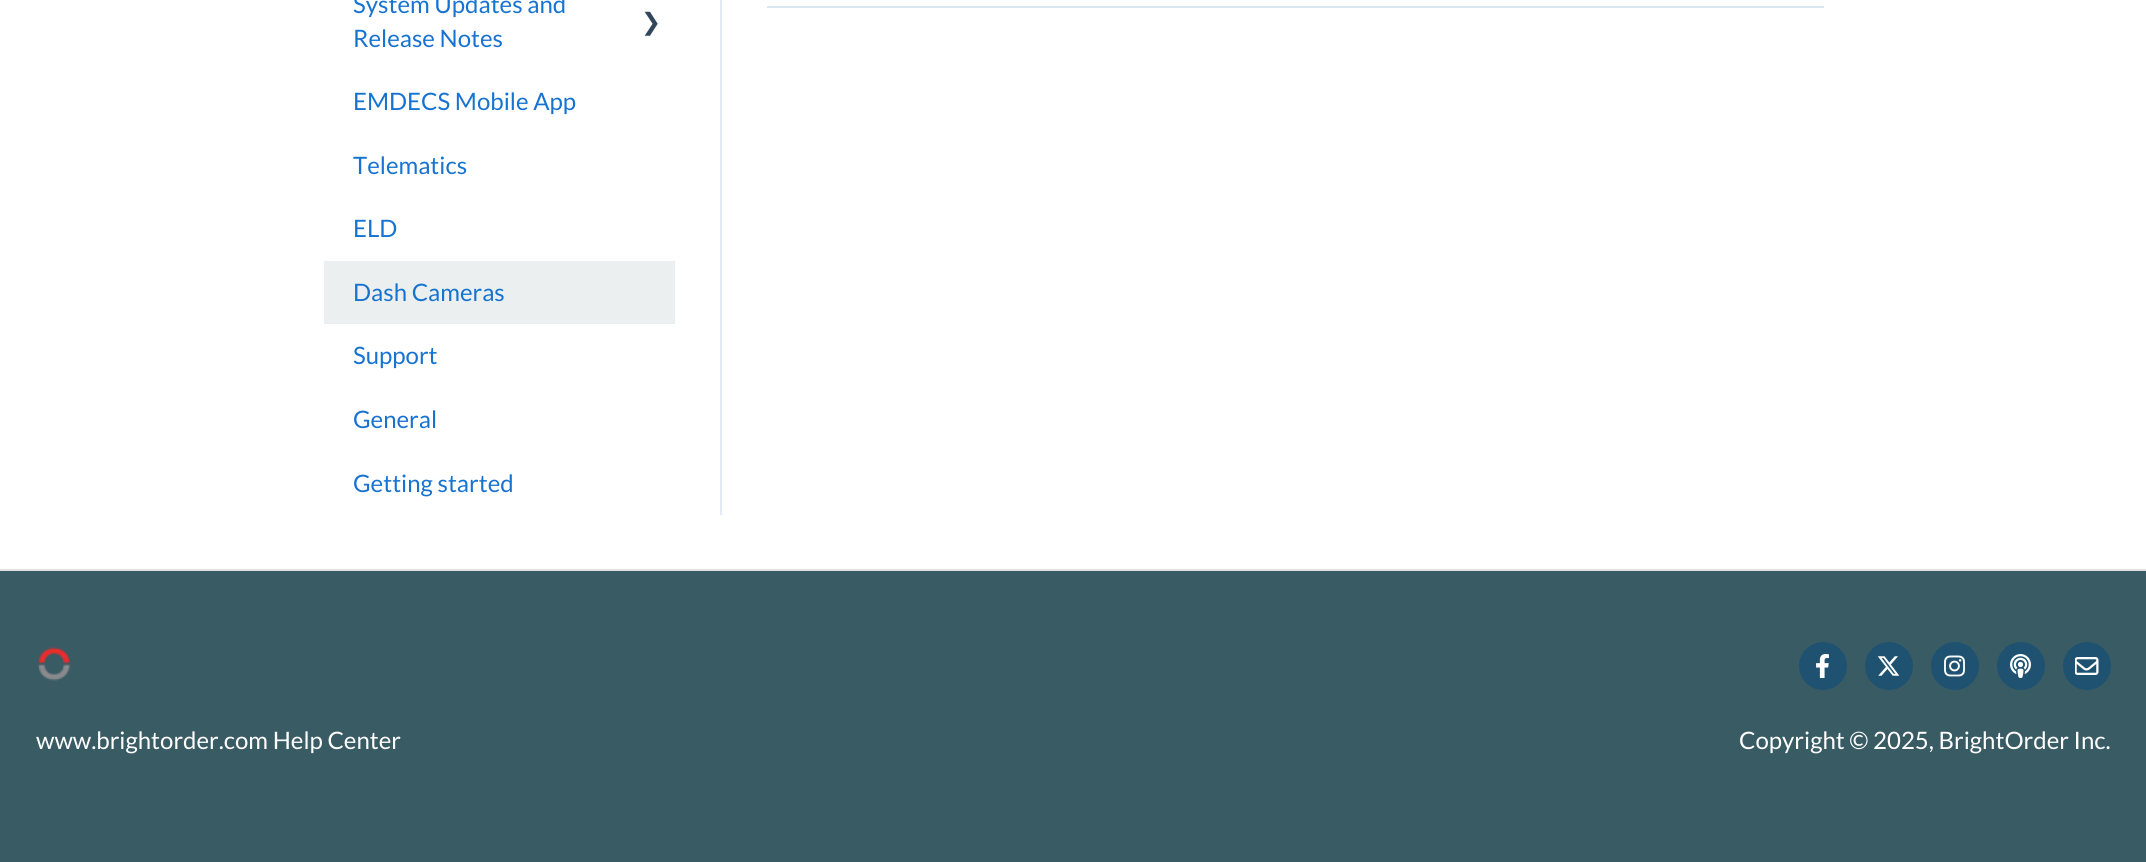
import math
import cairocffi as cairo

surface = cairo.ImageSurface(cairo.FORMAT_RGB24, 2146, 862)
ctx = cairo.Context(surface)
options = cairo.FontOptions()
options.set_hint_metrics(cairo.HINT_METRICS_OFF)
options.set_hint_style(cairo.HINT_STYLE_NONE)
ctx.set_font_options(options)
ctx.set_miter_limit(4)


def rgb(r, g, b):
    ctx.set_source_rgb(r / 255, g / 255, b / 255)


def face(family, size, italic, bold):
    ctx.select_font_face(family, cairo.FONT_SLANT_ITALIC if italic else cairo.FONT_SLANT_NORMAL, cairo.FONT_WEIGHT_BOLD if bold else cairo.FONT_WEIGHT_NORMAL)
    ctx.set_font_size(size)


def label(x, y, s):
    ctx.move_to(x, y)
    ctx.show_text(s)


def rect(x, y, w, h):
    ctx.rectangle(x, y, w, h)
    ctx.fill()


def image(path, x, y, w, h):
    ctx.save()
    ctx.set_source_surface(cairo.ImageSurface.create_from_png(path), x, y)
    ctx.rectangle(x, y, w, h)
    ctx.fill()
    ctx.restore()


rgb(255, 255, 255)
ctx.paint()
rgb(226, 235, 244)
rect(720, 0, 2, 515)
face('Lato', 24, 0, 0)
rgb(23, 115, 209)
label(353, 13, 'System Updates and')
label(353, 47, 'Release Notes')
face('DejaVu Sans', 24, 0, 0)
rgb(51, 71, 91)
label(641, 30, '❯')
face('Lato', 24, 0, 0)
rgb(23, 115, 209)
label(353, 110, 'EMDECS Mobile App')
label(353, 174, 'Telematics')
label(353, 237, 'ELD')
rgb(235, 239, 240)
rect(324, 261, 351, 63)
rgb(23, 115, 209)
label(353, 301, 'Dash Cameras')
label(353, 364, 'Support')
label(353, 428, 'General')
label(353, 492, 'Getting started')
rgb(217, 229, 240)
rect(767, 6, 1057, 2)
rgb(57, 91, 100)
rect(0, 571, 2146, 291)
rgb(224, 224, 224)
rect(0, 569, 2146, 2)
image('image0.png', 37, 647, 34, 34)
rgb(255, 255, 255)
label(36, 749, 'www.brightorder.com Help Center')
rgb(30, 82, 112)
ctx.new_path()
ctx.arc(1823, 666, 24, 0, 2 * math.pi)
ctx.fill()
image('image1.png', 1816, 654, 13, 24)
ctx.arc(1889, 666, 24, 0, 2 * math.pi)
ctx.fill()
image('image2.png', 1877, 656, 23, 20)
ctx.arc(1955, 666, 24, 0, 2 * math.pi)
ctx.fill()
image('image3.png', 1944, 655, 21, 22)
ctx.arc(2021, 666, 24, 0, 2 * math.pi)
ctx.fill()
image('image4.png', 2010, 654, 21, 24)
ctx.arc(2087, 666, 24, 0, 2 * math.pi)
ctx.fill()
image('image5.png', 2075, 657, 24, 18)
rgb(255, 255, 255)
label(1739, 749, 'Copyright © 2025, BrightOrder Inc.')
surface.write_to_png('render.png')
